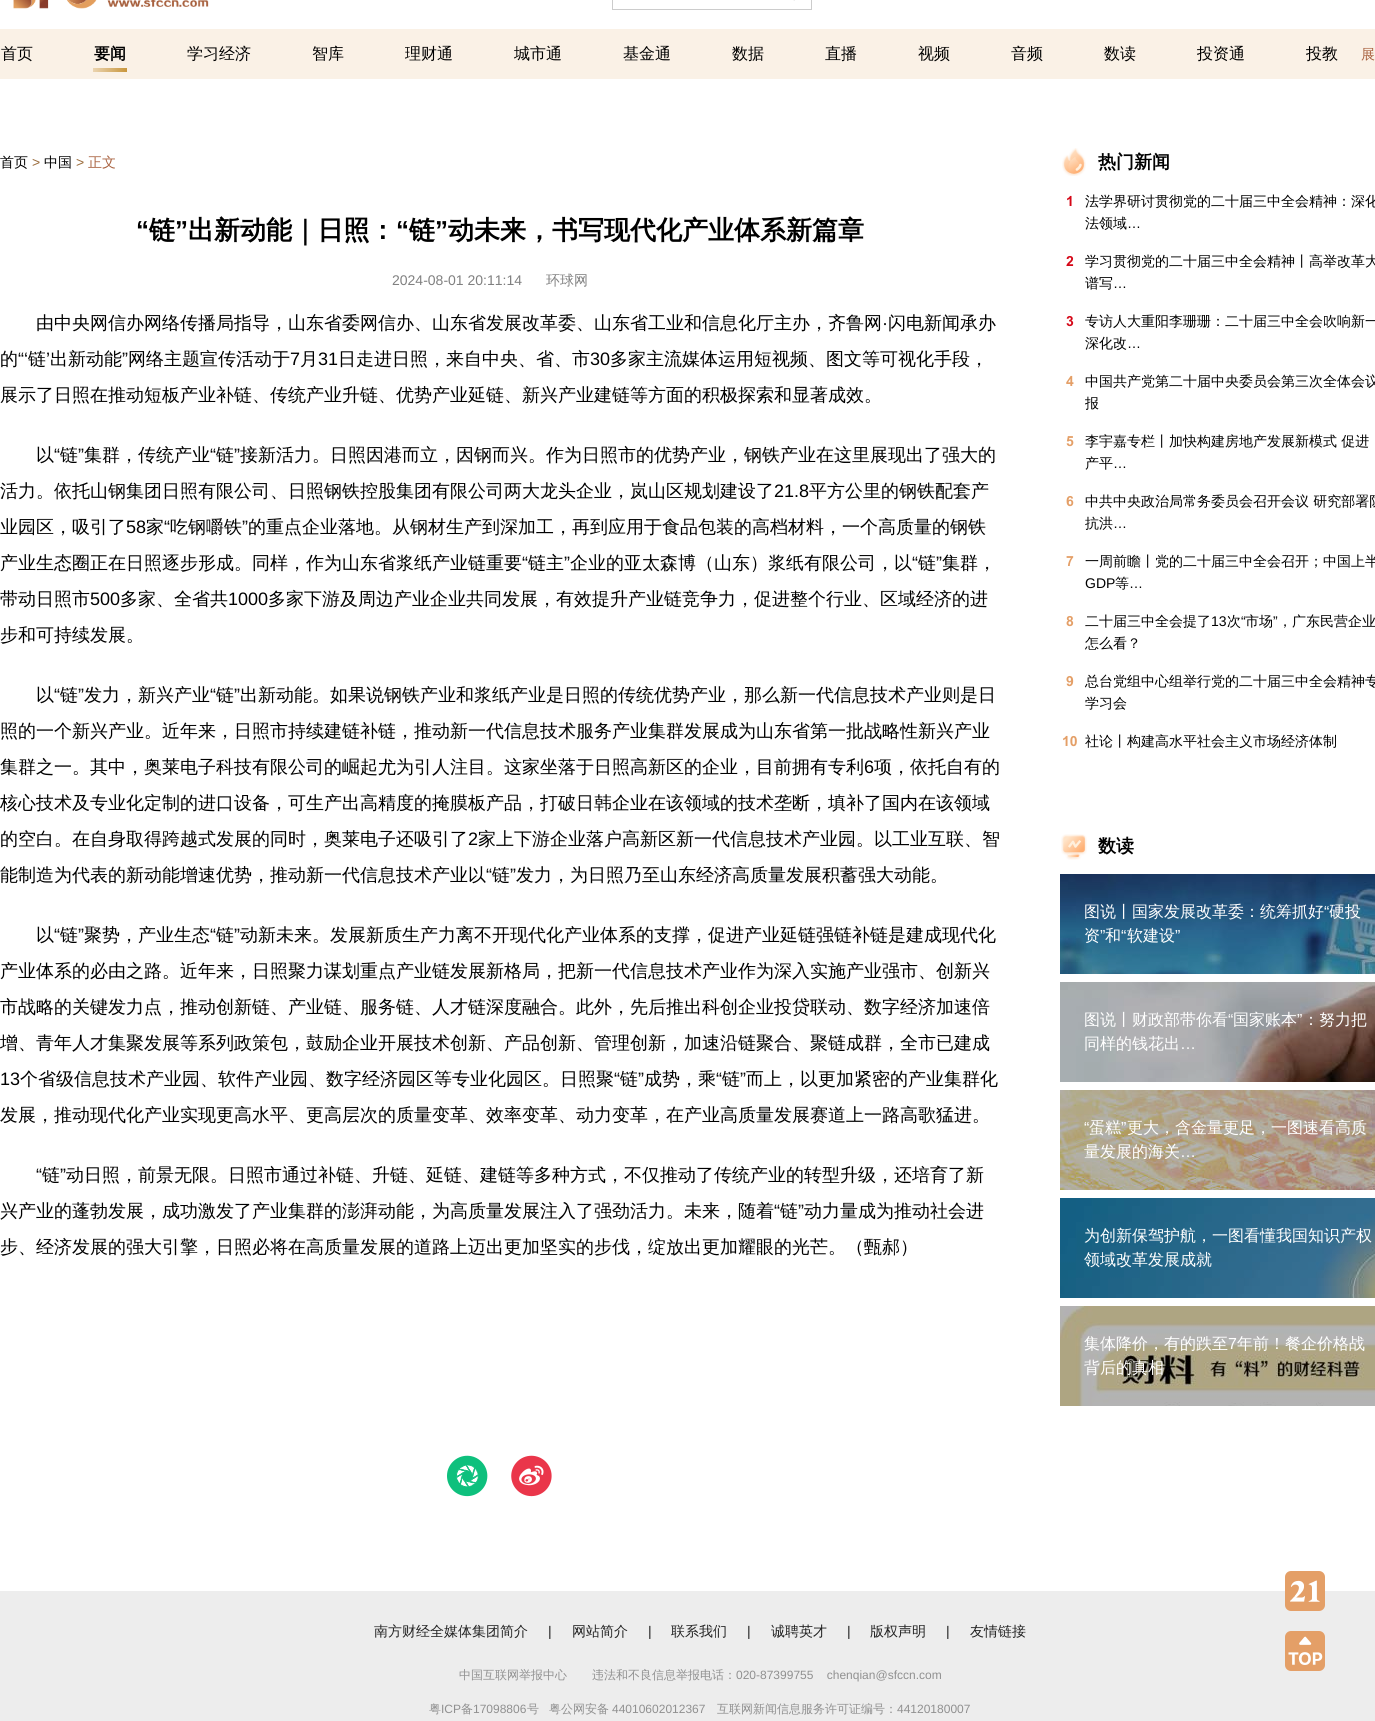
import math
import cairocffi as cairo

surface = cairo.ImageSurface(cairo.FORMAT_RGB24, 1375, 1721)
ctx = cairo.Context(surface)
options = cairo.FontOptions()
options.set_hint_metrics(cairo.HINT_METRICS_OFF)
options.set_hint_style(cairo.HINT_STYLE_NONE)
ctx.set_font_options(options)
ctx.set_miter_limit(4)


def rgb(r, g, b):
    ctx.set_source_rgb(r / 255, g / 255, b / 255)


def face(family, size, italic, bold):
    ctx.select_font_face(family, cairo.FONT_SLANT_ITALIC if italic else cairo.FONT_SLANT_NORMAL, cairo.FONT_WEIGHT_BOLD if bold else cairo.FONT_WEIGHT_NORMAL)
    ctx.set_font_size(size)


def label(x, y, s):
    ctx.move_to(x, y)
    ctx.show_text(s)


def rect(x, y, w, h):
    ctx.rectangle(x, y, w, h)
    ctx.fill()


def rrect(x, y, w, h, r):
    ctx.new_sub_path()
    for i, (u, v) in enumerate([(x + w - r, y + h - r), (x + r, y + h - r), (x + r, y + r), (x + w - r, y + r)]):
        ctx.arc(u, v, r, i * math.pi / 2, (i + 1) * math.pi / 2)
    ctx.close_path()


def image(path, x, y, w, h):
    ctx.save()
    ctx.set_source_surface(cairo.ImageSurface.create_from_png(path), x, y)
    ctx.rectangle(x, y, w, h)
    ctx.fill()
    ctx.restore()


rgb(255, 255, 255)
ctx.paint()
image('image0.png', 13, 0, 196, 9)
ctx.rectangle(612.5, -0.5, 199, 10)
rgb(204, 204, 204)
ctx.set_line_width(1)
ctx.stroke()
image('image1.png', 793, 0, 2, 1)
rgb(250, 241, 230)
rect(0, 29, 1375, 50)
face('WenQuanYi Zen Hei Medium', 16, 0, 0)
rgb(0, 0, 0)
label(1, 59, '首页')
face('WenQuanYi Zen Hei', 16, 0, 1)
label(94, 59, '要闻')
gradient = cairo.LinearGradient(93, 70, 127, 70)
gradient.add_color_stop_rgba(0, 0.918, 0.831, 0.69, 1)
gradient.add_color_stop_rgba(1, 0.788, 0.588, 0.235, 1)
ctx.set_source(gradient)
rect(93, 68, 34, 4)
face('WenQuanYi Zen Hei Medium', 16, 0, 0)
rgb(0, 0, 0)
label(187, 59, '学习经济')
label(312, 59, '智库')
label(405, 59, '理财通')
label(514, 59, '城市通')
label(623, 59, '基金通')
label(732, 59, '数据')
label(825, 59, '直播')
label(918, 59, '视频')
label(1011, 59, '音频')
label(1104, 59, '数读')
label(1197, 59, '投资通')
label(1306, 59, '投教')
face('WenQuanYi Zen Hei Medium', 14, 0, 0)
rgb(169, 98, 64)
label(1361, 59, '展')
rgb(0, 0, 0)
label(0, 167, '首页')
face('Liberation Sans', 14, 0, 0)
rgb(155, 108, 60)
label(32, 167, '>')
face('WenQuanYi Zen Hei Medium', 14, 0, 0)
rgb(0, 0, 0)
label(44, 167, '中国')
face('Liberation Sans', 14, 0, 0)
rgb(155, 108, 60)
label(76, 167, '>')
face('WenQuanYi Zen Hei Medium', 14, 0, 0)
rgb(169, 98, 64)
label(88, 167, '正文')
face('Liberation Sans', 26, 0, 1)
rgb(0, 0, 0)
label(136, 239, '“')
face('WenQuanYi Zen Hei', 26, 0, 1)
label(149, 239, '链')
face('Liberation Sans', 26, 0, 1)
label(175, 239, '”')
face('WenQuanYi Zen Hei', 26, 0, 1)
label(188, 239, '出新动能｜日照：')
face('Liberation Sans', 26, 0, 1)
label(396, 239, '“')
face('WenQuanYi Zen Hei', 26, 0, 1)
label(409, 239, '链')
face('Liberation Sans', 26, 0, 1)
label(435, 239, '”')
face('WenQuanYi Zen Hei', 26, 0, 1)
label(448, 239, '动未来，书写现代化产业体系新篇章')
face('Liberation Sans', 14, 0, 0)
rgb(128, 128, 128)
label(392, 285, '2024-08-01 20:11:14')
face('WenQuanYi Zen Hei Medium', 14, 0, 0)
label(546, 285, '环球网')
face('WenQuanYi Zen Hei Medium', 18, 0, 0)
rgb(0, 0, 0)
label(36, 329, '由中央网信办网络传播局指导，山东省委网信办、山东省发展改革委、山东省工业和信息化厅主办，齐鲁网')
face('Liberation Sans', 18, 0, 0)
label(882, 329, '·')
face('WenQuanYi Zen Hei Medium', 18, 0, 0)
label(888, 329, '闪电新闻承办')
label(0, 365, '的')
face('Liberation Sans', 18, 0, 0)
label(18, 365, '“‘')
face('WenQuanYi Zen Hei Medium', 18, 0, 0)
label(28, 365, '链')
face('Liberation Sans', 18, 0, 0)
label(46, 365, '’')
face('WenQuanYi Zen Hei Medium', 18, 0, 0)
label(50, 365, '出新动能')
face('Liberation Sans', 18, 0, 0)
label(122, 365, '”')
face('WenQuanYi Zen Hei Medium', 18, 0, 0)
label(128, 365, '网络主题宣传活动于')
face('Liberation Sans', 18, 0, 0)
label(290, 365, '7')
face('WenQuanYi Zen Hei Medium', 18, 0, 0)
label(300, 365, '月')
face('Liberation Sans', 18, 0, 0)
label(318, 365, '31')
face('WenQuanYi Zen Hei Medium', 18, 0, 0)
label(338, 365, '日走进日照，来自中央、省、市')
face('Liberation Sans', 18, 0, 0)
label(590, 365, '30')
face('WenQuanYi Zen Hei Medium', 18, 0, 0)
label(610, 365, '多家主流媒体运用短视频、图文等可视化手段，')
label(0, 401, '展示了日照在推动短板产业补链、传统产业升链、优势产业延链、新兴产业建链等方面的积极探索和显著成效。')
label(36, 461, '以')
face('Liberation Sans', 18, 0, 0)
label(54, 461, '“')
face('WenQuanYi Zen Hei Medium', 18, 0, 0)
label(60, 461, '链')
face('Liberation Sans', 18, 0, 0)
label(78, 461, '”')
face('WenQuanYi Zen Hei Medium', 18, 0, 0)
label(84, 461, '集群，传统产业')
face('Liberation Sans', 18, 0, 0)
label(210, 461, '“')
face('WenQuanYi Zen Hei Medium', 18, 0, 0)
label(216, 461, '链')
face('Liberation Sans', 18, 0, 0)
label(234, 461, '”')
face('WenQuanYi Zen Hei Medium', 18, 0, 0)
label(240, 461, '接新活力。日照因港而立，因钢而兴。作为日照市的优势产业，钢铁产业在这里展现出了强大的')
label(0, 497, '活力。依托山钢集团日照有限公司、日照钢铁控股集团有限公司两大龙头企业，岚山区规划建设了')
face('Liberation Sans', 18, 0, 0)
label(774, 497, '21.8')
face('WenQuanYi Zen Hei Medium', 18, 0, 0)
label(809, 497, '平方公里的钢铁配套产')
label(0, 533, '业园区，吸引了')
face('Liberation Sans', 18, 0, 0)
label(126, 533, '58')
face('WenQuanYi Zen Hei Medium', 18, 0, 0)
label(146, 533, '家')
face('Liberation Sans', 18, 0, 0)
label(164, 533, '“')
face('WenQuanYi Zen Hei Medium', 18, 0, 0)
label(170, 533, '吃钢嚼铁')
face('Liberation Sans', 18, 0, 0)
label(242, 533, '”')
face('WenQuanYi Zen Hei Medium', 18, 0, 0)
label(248, 533, '的重点企业落地。从钢材生产到深加工，再到应用于食品包装的高档材料，一个高质量的钢铁')
label(0, 569, '产业生态圈正在日照逐步形成。同样，作为山东省浆纸产业链重要')
face('Liberation Sans', 18, 0, 0)
label(522, 569, '“')
face('WenQuanYi Zen Hei Medium', 18, 0, 0)
label(528, 569, '链主')
face('Liberation Sans', 18, 0, 0)
label(564, 569, '”')
face('WenQuanYi Zen Hei Medium', 18, 0, 0)
label(570, 569, '企业的亚太森博（山东）浆纸有限公司，以')
face('Liberation Sans', 18, 0, 0)
label(912, 569, '“')
face('WenQuanYi Zen Hei Medium', 18, 0, 0)
label(918, 569, '链')
face('Liberation Sans', 18, 0, 0)
label(936, 569, '”')
face('WenQuanYi Zen Hei Medium', 18, 0, 0)
label(942, 569, '集群，')
label(0, 605, '带动日照市')
face('Liberation Sans', 18, 0, 0)
label(90, 605, '500')
face('WenQuanYi Zen Hei Medium', 18, 0, 0)
label(120, 605, '多家、全省共')
face('Liberation Sans', 18, 0, 0)
label(228, 605, '1000')
face('WenQuanYi Zen Hei Medium', 18, 0, 0)
label(268, 605, '多家下游及周边产业企业共同发展，有效提升产业链竞争力，促进整个行业、区域经济的进')
label(0, 641, '步和可持续发展。')
label(36, 701, '以')
face('Liberation Sans', 18, 0, 0)
label(54, 701, '“')
face('WenQuanYi Zen Hei Medium', 18, 0, 0)
label(60, 701, '链')
face('Liberation Sans', 18, 0, 0)
label(78, 701, '”')
face('WenQuanYi Zen Hei Medium', 18, 0, 0)
label(84, 701, '发力，新兴产业')
face('Liberation Sans', 18, 0, 0)
label(210, 701, '“')
face('WenQuanYi Zen Hei Medium', 18, 0, 0)
label(216, 701, '链')
face('Liberation Sans', 18, 0, 0)
label(234, 701, '”')
face('WenQuanYi Zen Hei Medium', 18, 0, 0)
label(240, 701, '出新动能。如果说钢铁产业和浆纸产业是日照的传统优势产业，那么新一代信息技术产业则是日')
label(0, 737, '照的一个新兴产业。近年来，日照市持续建链补链，推动新一代信息技术服务产业集群发展成为山东省第一批战略性新兴产业')
label(0, 773, '集群之一。其中，奥莱电子科技有限公司的崛起尤为引人注目。这家坐落于日照高新区的企业，目前拥有专利')
face('Liberation Sans', 18, 0, 0)
label(864, 773, '6')
face('WenQuanYi Zen Hei Medium', 18, 0, 0)
label(874, 773, '项，依托自有的')
label(0, 809, '核心技术及专业化定制的进口设备，可生产出高精度的掩膜板产品，打破日韩企业在该领域的技术垄断，填补了国内在该领域')
label(0, 845, '的空白。在自身取得跨越式发展的同时，奥莱电子还吸引了')
face('Liberation Sans', 18, 0, 0)
label(468, 845, '2')
face('WenQuanYi Zen Hei Medium', 18, 0, 0)
label(478, 845, '家上下游企业落户高新区新一代信息技术产业园。以工业互联、智')
label(0, 881, '能制造为代表的新动能增速优势，推动新一代信息技术产业以')
face('Liberation Sans', 18, 0, 0)
label(486, 881, '“')
face('WenQuanYi Zen Hei Medium', 18, 0, 0)
label(492, 881, '链')
face('Liberation Sans', 18, 0, 0)
label(510, 881, '”')
face('WenQuanYi Zen Hei Medium', 18, 0, 0)
label(516, 881, '发力，为日照乃至山东经济高质量发展积蓄强大动能。')
label(36, 941, '以')
face('Liberation Sans', 18, 0, 0)
label(54, 941, '“')
face('WenQuanYi Zen Hei Medium', 18, 0, 0)
label(60, 941, '链')
face('Liberation Sans', 18, 0, 0)
label(78, 941, '”')
face('WenQuanYi Zen Hei Medium', 18, 0, 0)
label(84, 941, '聚势，产业生态')
face('Liberation Sans', 18, 0, 0)
label(210, 941, '“')
face('WenQuanYi Zen Hei Medium', 18, 0, 0)
label(216, 941, '链')
face('Liberation Sans', 18, 0, 0)
label(234, 941, '”')
face('WenQuanYi Zen Hei Medium', 18, 0, 0)
label(240, 941, '动新未来。发展新质生产力离不开现代化产业体系的支撑，促进产业延链强链补链是建成现代化')
label(0, 977, '产业体系的必由之路。近年来，日照聚力谋划重点产业链发展新格局，把新一代信息技术产业作为深入实施产业强市、创新兴')
label(0, 1013, '市战略的关键发力点，推动创新链、产业链、服务链、人才链深度融合。此外，先后推出科创企业投贷联动、数字经济加速倍')
label(0, 1049, '增、青年人才集聚发展等系列政策包，鼓励企业开展技术创新、产品创新、管理创新，加速沿链聚合、聚链成群，全市已建成')
face('Liberation Sans', 18, 0, 0)
label(0, 1085, '13')
face('WenQuanYi Zen Hei Medium', 18, 0, 0)
label(20, 1085, '个省级信息技术产业园、软件产业园、数字经济园区等专业化园区。日照聚')
face('Liberation Sans', 18, 0, 0)
label(614, 1085, '“')
face('WenQuanYi Zen Hei Medium', 18, 0, 0)
label(620, 1085, '链')
face('Liberation Sans', 18, 0, 0)
label(638, 1085, '”')
face('WenQuanYi Zen Hei Medium', 18, 0, 0)
label(644, 1085, '成势，乘')
face('Liberation Sans', 18, 0, 0)
label(716, 1085, '“')
face('WenQuanYi Zen Hei Medium', 18, 0, 0)
label(722, 1085, '链')
face('Liberation Sans', 18, 0, 0)
label(740, 1085, '”')
face('WenQuanYi Zen Hei Medium', 18, 0, 0)
label(746, 1085, '而上，以更加紧密的产业集群化')
label(0, 1121, '发展，推动现代化产业实现更高水平、更高层次的质量变革、效率变革、动力变革，在产业高质量发展赛道上一路高歌猛进。')
face('Liberation Sans', 18, 0, 0)
label(36, 1181, '“')
face('WenQuanYi Zen Hei Medium', 18, 0, 0)
label(42, 1181, '链')
face('Liberation Sans', 18, 0, 0)
label(60, 1181, '”')
face('WenQuanYi Zen Hei Medium', 18, 0, 0)
label(66, 1181, '动日照，前景无限。日照市通过补链、升链、延链、建链等多种方式，不仅推动了传统产业的转型升级，还培育了新')
label(0, 1217, '兴产业的蓬勃发展，成功激发了产业集群的澎湃动能，为高质量发展注入了强劲活力。未来，随着')
face('Liberation Sans', 18, 0, 0)
label(774, 1217, '“')
face('WenQuanYi Zen Hei Medium', 18, 0, 0)
label(780, 1217, '链')
face('Liberation Sans', 18, 0, 0)
label(798, 1217, '”')
face('WenQuanYi Zen Hei Medium', 18, 0, 0)
label(804, 1217, '动力量成为推动社会进')
label(0, 1253, '步、经济发展的强大引擎，日照必将在高质量发展的道路上迈出更加坚实的步伐，绽放出更加耀眼的光芒。（甄郝）')
image('image2.png', 447, 1455, 41, 42)
image('image3.png', 511, 1455, 41, 42)
image('image4.png', 1062, 148, 24, 28)
face('WenQuanYi Zen Hei', 18, 0, 1)
label(1098, 168, '热门新闻')
face('Arial', 14, 0, 1)
rgb(213, 7, 23)
label(1066, 206, '1')
face('WenQuanYi Zen Hei Medium', 14, 0, 0)
rgb(0, 0, 0)
label(1085, 206, '法学界研讨贯彻党的二十届三中全会精神：深化')
label(1085, 228, '法领域')
face('Liberation Sans', 14, 0, 0)
label(1127, 228, '…')
face('Arial', 14, 0, 1)
rgb(213, 7, 23)
label(1066, 266, '2')
face('WenQuanYi Zen Hei Medium', 14, 0, 0)
rgb(0, 0, 0)
label(1085, 266, '学习贯彻党的二十届三中全会精神丨高举改革大')
label(1085, 288, '谱写')
face('Liberation Sans', 14, 0, 0)
label(1113, 288, '…')
face('Arial', 14, 0, 1)
rgb(213, 7, 23)
label(1066, 326, '3')
face('WenQuanYi Zen Hei Medium', 14, 0, 0)
rgb(0, 0, 0)
label(1085, 326, '专访人大重阳李珊珊：二十届三中全会吹响新一')
label(1085, 348, '深化改')
face('Liberation Sans', 14, 0, 0)
label(1127, 348, '…')
face('Arial', 14, 0, 1)
rgb(228, 159, 103)
label(1066, 386, '4')
face('WenQuanYi Zen Hei Medium', 14, 0, 0)
rgb(0, 0, 0)
label(1085, 386, '中国共产党第二十届中央委员会第三次全体会议')
label(1085, 408, '报')
face('Arial', 14, 0, 1)
rgb(228, 159, 103)
label(1066, 446, '5')
face('WenQuanYi Zen Hei Medium', 14, 0, 0)
rgb(0, 0, 0)
label(1085, 446, '李宇嘉专栏丨加快构建房地产发展新模式 促进')
label(1085, 468, '产平')
face('Liberation Sans', 14, 0, 0)
label(1113, 468, '…')
face('Arial', 14, 0, 1)
rgb(228, 159, 103)
label(1066, 506, '6')
face('WenQuanYi Zen Hei Medium', 14, 0, 0)
rgb(0, 0, 0)
label(1085, 506, '中共中央政治局常务委员会召开会议 研究部署防')
label(1085, 528, '抗洪')
face('Liberation Sans', 14, 0, 0)
label(1113, 528, '…')
face('Arial', 14, 0, 1)
rgb(228, 159, 103)
label(1066, 566, '7')
face('WenQuanYi Zen Hei Medium', 14, 0, 0)
rgb(0, 0, 0)
label(1085, 566, '一周前瞻丨党的二十届三中全会召开；中国上半')
face('Liberation Sans', 14, 0, 0)
label(1085, 588, 'GDP')
face('WenQuanYi Zen Hei Medium', 14, 0, 0)
label(1115, 588, '等')
face('Liberation Sans', 14, 0, 0)
label(1129, 588, '…')
face('Arial', 14, 0, 1)
rgb(228, 159, 103)
label(1066, 626, '8')
face('WenQuanYi Zen Hei Medium', 14, 0, 0)
rgb(0, 0, 0)
label(1085, 626, '二十届三中全会提了')
face('Liberation Sans', 14, 0, 0)
label(1211, 626, '13')
face('WenQuanYi Zen Hei Medium', 14, 0, 0)
label(1227, 626, '次')
face('Liberation Sans', 14, 0, 0)
label(1241, 626, '“')
face('WenQuanYi Zen Hei Medium', 14, 0, 0)
label(1245, 626, '市场')
face('Liberation Sans', 14, 0, 0)
label(1273, 626, '”')
face('WenQuanYi Zen Hei Medium', 14, 0, 0)
label(1278, 626, '，广东民营企业')
label(1085, 648, '怎么看？')
face('Arial', 14, 0, 1)
rgb(228, 159, 103)
label(1066, 686, '9')
face('WenQuanYi Zen Hei Medium', 14, 0, 0)
rgb(0, 0, 0)
label(1085, 686, '总台党组中心组举行党的二十届三中全会精神专')
label(1085, 708, '学习会')
face('Arial', 14, 0, 1)
rgb(228, 159, 103)
label(1062, 746, '10')
face('WenQuanYi Zen Hei Medium', 14, 0, 0)
rgb(0, 0, 0)
label(1085, 746, '社论丨构建高水平社会主义市场经济体制')
image('image5.png', 1061, 834, 26, 26)
face('WenQuanYi Zen Hei', 18, 0, 1)
label(1098, 852, '数读')
image('image6.png', 1060, 874, 315, 100)
face('WenQuanYi Zen Hei Medium', 16, 0, 0)
rgb(255, 255, 255)
label(1084, 917, '图说丨国家发展改革委：统筹抓好')
face('Liberation Sans', 16, 0, 0)
label(1324, 917, '“')
face('WenQuanYi Zen Hei Medium', 16, 0, 0)
label(1329, 917, '硬投')
label(1084, 941, '资')
face('Liberation Sans', 16, 0, 0)
label(1100, 941, '”')
face('WenQuanYi Zen Hei Medium', 16, 0, 0)
label(1105, 941, '和')
face('Liberation Sans', 16, 0, 0)
label(1121, 941, '“')
face('WenQuanYi Zen Hei Medium', 16, 0, 0)
label(1127, 941, '软建设')
face('Liberation Sans', 16, 0, 0)
label(1175, 941, '”')
image('image7.png', 1060, 982, 315, 100)
face('WenQuanYi Zen Hei Medium', 16, 0, 0)
label(1084, 1025, '图说丨财政部带你看')
face('Liberation Sans', 16, 0, 0)
label(1228, 1025, '“')
face('WenQuanYi Zen Hei Medium', 16, 0, 0)
label(1233, 1025, '国家账本')
face('Liberation Sans', 16, 0, 0)
label(1297, 1025, '”')
face('WenQuanYi Zen Hei Medium', 16, 0, 0)
label(1303, 1025, '：努力把')
label(1084, 1049, '同样的钱花出')
face('Liberation Sans', 16, 0, 0)
label(1180, 1049, '…')
image('image8.png', 1060, 1090, 315, 100)
label(1084, 1133, '“')
face('WenQuanYi Zen Hei Medium', 16, 0, 0)
label(1089, 1133, '蛋糕')
face('Liberation Sans', 16, 0, 0)
label(1121, 1133, '”')
face('WenQuanYi Zen Hei Medium', 16, 0, 0)
label(1127, 1133, '更大，含金量更足，一图速看高质')
label(1084, 1157, '量发展的海关')
face('Liberation Sans', 16, 0, 0)
label(1180, 1157, '…')
image('image9.png', 1060, 1198, 315, 100)
face('WenQuanYi Zen Hei Medium', 16, 0, 0)
label(1084, 1241, '为创新保驾护航，一图看懂我国知识产权')
label(1084, 1265, '领域改革发展成就')
image('image10.png', 1060, 1306, 315, 100)
label(1084, 1349, '集体降价，有的跌至')
face('Liberation Sans', 16, 0, 0)
label(1228, 1349, '7')
face('WenQuanYi Zen Hei Medium', 16, 0, 0)
label(1237, 1349, '年前！餐企价格战')
label(1084, 1373, '背后的真相')
rgb(237, 237, 237)
rect(0, 1591, 1375, 130)
face('WenQuanYi Zen Hei Medium', 14, 0, 0)
rgb(34, 34, 34)
label(374, 1636, '南方财经全媒体集团简介')
face('Liberation Sans', 14, 0, 0)
label(548, 1636, '|')
face('WenQuanYi Zen Hei Medium', 14, 0, 0)
label(572, 1636, '网站简介')
face('Liberation Sans', 14, 0, 0)
label(648, 1636, '|')
face('WenQuanYi Zen Hei Medium', 14, 0, 0)
label(671, 1636, '联系我们')
face('Liberation Sans', 14, 0, 0)
label(747, 1636, '|')
face('WenQuanYi Zen Hei Medium', 14, 0, 0)
label(771, 1636, '诚聘英才')
face('Liberation Sans', 14, 0, 0)
label(847, 1636, '|')
face('WenQuanYi Zen Hei Medium', 14, 0, 0)
label(870, 1636, '版权声明')
face('Liberation Sans', 14, 0, 0)
label(946, 1636, '|')
face('WenQuanYi Zen Hei Medium', 14, 0, 0)
label(970, 1636, '友情链接')
face('WenQuanYi Zen Hei Medium', 12, 0, 0)
rgb(144, 144, 144)
label(459, 1679, '中国互联网举报中心')
label(592, 1679, '违法和不良信息举报电话：')
face('Liberation Sans', 12, 0, 0)
label(736, 1679, '020-87399755    chenqian@sfccn.com')
face('WenQuanYi Zen Hei Medium', 12, 0, 0)
label(429, 1713, '粤')
face('Liberation Sans', 12, 0, 0)
label(441, 1713, 'ICP')
face('WenQuanYi Zen Hei Medium', 12, 0, 0)
label(461, 1713, '备')
face('Liberation Sans', 12, 0, 0)
label(473, 1713, '17098806')
face('WenQuanYi Zen Hei Medium', 12, 0, 0)
label(527, 1713, '号')
label(549, 1713, '粤公网安备')
face('Liberation Sans', 12, 0, 0)
label(612, 1713, '44010602012367')
face('WenQuanYi Zen Hei Medium', 12, 0, 0)
label(717, 1713, '互联网新闻信息服务许可证编号：')
face('Liberation Sans', 12, 0, 0)
label(897, 1713, '44120180007')
rgb(228, 159, 103)
rrect(1285, 1571, 40, 40, 6)
ctx.fill()
image('image11.png', 1290, 1580, 30, 22)
rrect(1285, 1631, 40, 40, 6)
ctx.fill()
image('image12.png', 1288, 1636, 35, 29)
surface.write_to_png('render.png')
